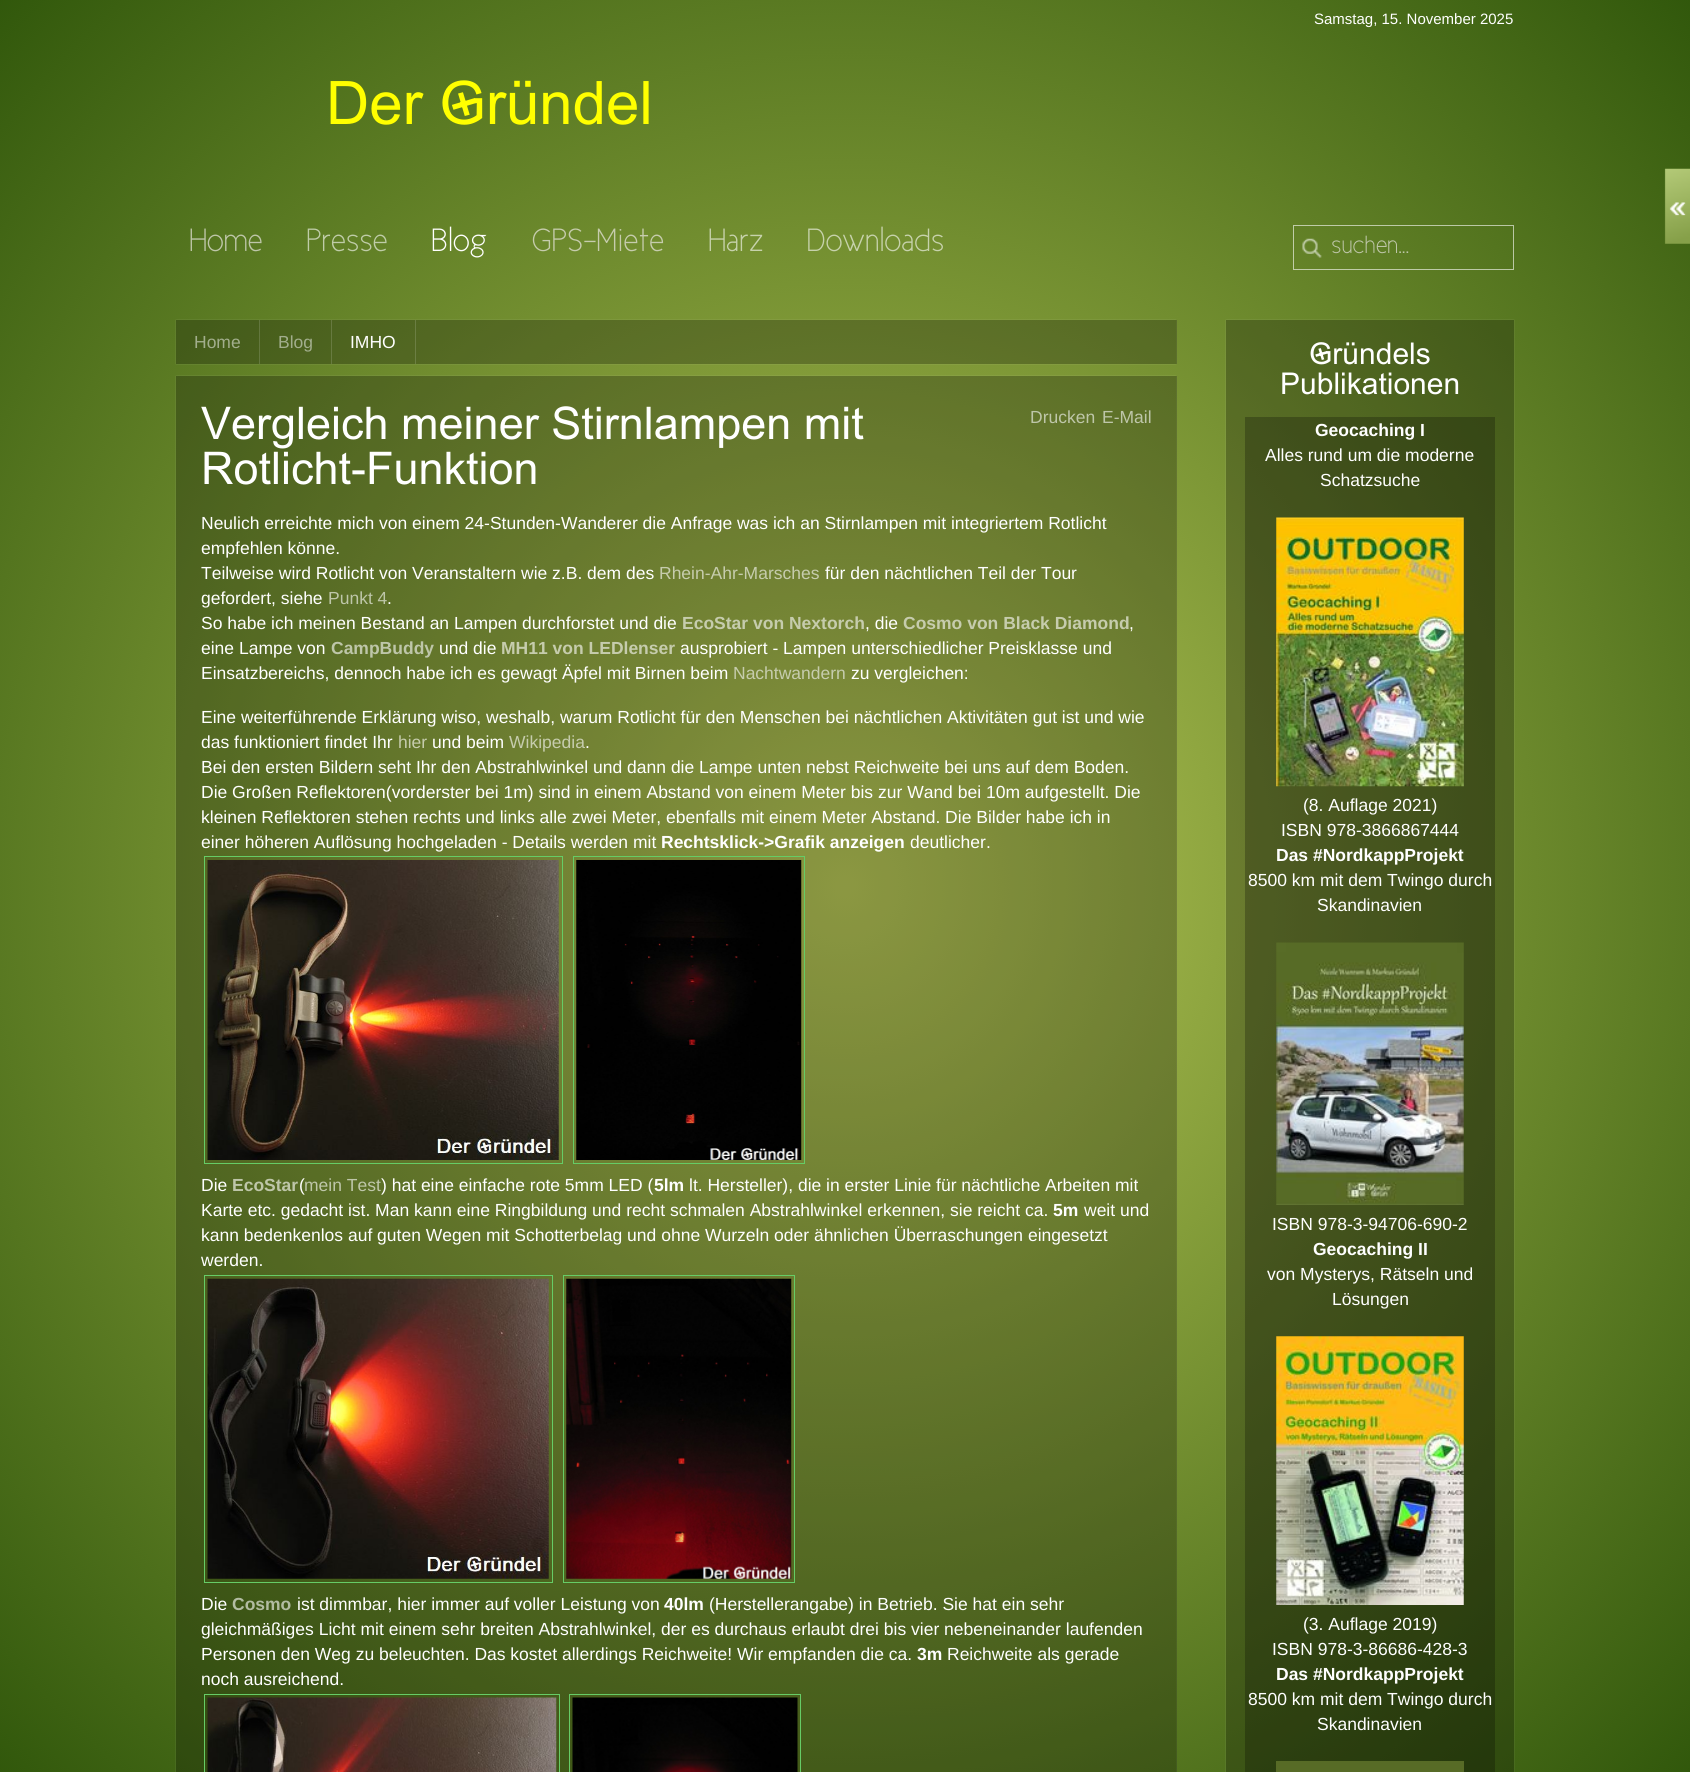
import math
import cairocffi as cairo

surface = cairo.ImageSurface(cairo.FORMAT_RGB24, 1690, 1772)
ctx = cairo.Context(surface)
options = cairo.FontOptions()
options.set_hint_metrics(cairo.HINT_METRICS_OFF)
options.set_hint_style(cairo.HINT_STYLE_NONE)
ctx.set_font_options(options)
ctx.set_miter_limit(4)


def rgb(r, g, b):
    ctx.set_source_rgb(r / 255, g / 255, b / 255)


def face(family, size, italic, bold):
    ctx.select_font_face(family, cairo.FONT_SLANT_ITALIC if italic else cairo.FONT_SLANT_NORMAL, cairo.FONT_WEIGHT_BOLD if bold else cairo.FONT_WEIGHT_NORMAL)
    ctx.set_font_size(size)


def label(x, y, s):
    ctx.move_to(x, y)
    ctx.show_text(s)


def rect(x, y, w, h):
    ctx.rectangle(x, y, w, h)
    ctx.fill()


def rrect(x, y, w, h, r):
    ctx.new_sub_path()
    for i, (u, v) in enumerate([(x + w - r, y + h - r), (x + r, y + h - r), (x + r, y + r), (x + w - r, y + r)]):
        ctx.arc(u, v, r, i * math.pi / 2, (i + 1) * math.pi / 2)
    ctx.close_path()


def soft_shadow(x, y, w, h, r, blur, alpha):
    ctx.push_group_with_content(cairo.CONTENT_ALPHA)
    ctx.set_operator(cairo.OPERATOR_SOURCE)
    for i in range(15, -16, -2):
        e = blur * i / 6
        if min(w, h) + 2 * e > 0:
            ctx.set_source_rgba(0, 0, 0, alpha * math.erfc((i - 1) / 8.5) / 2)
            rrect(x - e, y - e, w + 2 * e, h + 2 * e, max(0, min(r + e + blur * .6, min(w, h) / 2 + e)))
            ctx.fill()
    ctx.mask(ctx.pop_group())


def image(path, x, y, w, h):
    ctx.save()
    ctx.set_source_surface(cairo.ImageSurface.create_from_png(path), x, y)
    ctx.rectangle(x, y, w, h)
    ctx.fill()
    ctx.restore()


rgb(255, 255, 255)
ctx.paint()
image('image0.png', 0, 0, 1690, 1772)
face('Liberation Sans', 15, 0, 0)
rgb(255, 255, 255)
label(1314, 24, 'Samstag, 15. November 2025')
face('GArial', 60, 0, 0)
rgb(255, 255, 0)
label(326, 124, 'Der Gründel')
face('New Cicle', 32.5, 0, 0)
rgb(190, 198, 169)
label(189, 251, 'Home')
rgb(191, 204, 168)
label(306, 251, 'Presse')
rgb(255, 255, 255)
label(431, 251, 'Blog')
rgb(198, 204, 173)
label(532, 251, 'GPS-Miete')
rgb(199, 210, 172)
label(708, 251, 'Harz')
label(807, 251, 'Downloads')
ctx.rectangle(1293.5, 225.5, 220, 44)
ctx.set_source_rgba(1, 1, 1, 0.6)
ctx.set_line_width(1)
ctx.stroke()
image('image1.png', 1302, 238, 20, 20)
face('New Cicle', 25, 0, 0)
rgb(190, 198, 169)
label(1331, 253, 'suchen...')
ctx.save()
ctx.set_fill_rule(cairo.FILL_RULE_EVEN_ODD)
ctx.new_path()
ctx.move_to(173, 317)
ctx.line_to(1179, 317)
ctx.line_to(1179, 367)
ctx.line_to(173, 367)
ctx.close_path()
ctx.move_to(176, 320)
ctx.line_to(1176, 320)
ctx.line_to(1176, 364)
ctx.line_to(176, 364)
ctx.close_path()
ctx.clip()
rgb(255, 255, 255)
soft_shadow(176, 320, 1000, 44, 0, 0.5, 0.2)
ctx.restore()
ctx.set_source_rgba(0, 0, 0, 0.25)
rect(176, 320, 1001, 44)
ctx.set_source_rgba(1, 1, 1, 0.15)
rect(259, 320, 1, 44)
face('Liberation Sans', 17.5, 0, 0)
rgb(162, 174, 141)
label(194, 348, 'Home')
ctx.set_source_rgba(1, 1, 1, 0.15)
rect(331, 320, 1, 44)
rgb(162, 174, 141)
label(278, 348, 'Blog')
ctx.set_source_rgba(1, 1, 1, 0.15)
rect(415, 320, 1, 44)
rgb(255, 255, 255)
label(350, 348, 'IMHO')
ctx.save()
ctx.set_fill_rule(cairo.FILL_RULE_EVEN_ODD)
ctx.new_path()
ctx.move_to(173, 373)
ctx.line_to(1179, 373)
ctx.line_to(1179, 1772)
ctx.line_to(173, 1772)
ctx.close_path()
ctx.move_to(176, 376)
ctx.line_to(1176, 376)
ctx.line_to(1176, 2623)
ctx.line_to(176, 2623)
ctx.close_path()
ctx.clip()
rgb(255, 255, 255)
soft_shadow(176, 376, 1000, 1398, 0, 0.5, 0.2)
ctx.restore()
ctx.set_source_rgba(0, 0, 0, 0.25)
rect(176, 376, 1001, 1396)
face('GArial', 45, 0, 0)
rgb(255, 255, 255)
label(201, 439, 'Vergleich meiner Stirnlampen mit')
label(201, 484, 'Rotlicht-Funktion')
face('Liberation Sans', 17.5, 0, 0)
rgb(190, 198, 169)
label(1030, 423, 'Drucken')
label(1102, 423, 'E-Mail')
rgb(255, 255, 255)
label(201, 529, 'Neulich erreichte mich von einem 24-Stunden-Wanderer die Anfrage was ich an Stirnlampen mit integriertem Rotlicht')
label(201, 554, 'empfehlen könne.')
label(201, 579, 'Teilweise wird Rotlicht von Veranstaltern wie z.B. dem des')
rgb(198, 204, 173)
label(659, 579, 'Rhein-Ahr-Marsches')
rgb(255, 255, 255)
label(825, 579, 'für den nächtlichen Teil der Tour')
label(201, 604, 'gefordert, siehe')
rgb(190, 198, 169)
label(328, 604, 'Punkt 4')
rgb(255, 255, 255)
label(387, 604, '.')
label(201, 629, 'So habe ich meinen Bestand an Lampen durchforstet und die')
face('Liberation Sans', 17.5, 0, 1)
rgb(198, 204, 173)
label(682, 629, 'EcoStar von Nextorch')
face('Liberation Sans', 17.5, 0, 0)
rgb(255, 255, 255)
label(865, 629, ', die')
face('Liberation Sans', 17.5, 0, 1)
rgb(198, 204, 173)
label(903, 629, 'Cosmo von Black Diamond')
face('Liberation Sans', 17.5, 0, 0)
rgb(255, 255, 255)
label(1129, 629, ',')
label(201, 654, 'eine Lampe von')
face('Liberation Sans', 17.5, 0, 1)
rgb(190, 198, 169)
label(331, 654, 'CampBuddy')
face('Liberation Sans', 17.5, 0, 0)
rgb(255, 255, 255)
label(439, 654, 'und die')
face('Liberation Sans', 17.5, 0, 1)
rgb(198, 204, 173)
label(501, 654, 'MH11 von LEDlenser')
face('Liberation Sans', 17.5, 0, 0)
rgb(255, 255, 255)
label(680, 654, 'ausprobiert - Lampen unterschiedlicher Preisklasse und')
label(201, 679, 'Einsatzbereichs, dennoch habe ich es gewagt Äpfel mit Birnen beim')
rgb(198, 204, 173)
label(733, 679, 'Nachtwandern')
rgb(255, 255, 255)
label(851, 679, 'zu vergleichen:')
label(201, 723, 'Eine weiterführende Erklärung wiso, weshalb, warum Rotlicht für den Menschen bei nächtlichen Aktivitäten gut ist und wie')
label(201, 748, 'das funktioniert findet Ihr')
rgb(198, 204, 173)
label(398, 748, 'hier')
rgb(255, 255, 255)
label(432, 748, 'und beim')
rgb(198, 204, 173)
label(509, 748, 'Wikipedia')
rgb(255, 255, 255)
label(585, 748, '.')
label(201, 773, 'Bei den ersten Bildern seht Ihr den Abstrahlwinkel und dann die Lampe unten nebst Reichweite bei uns auf dem Boden.')
label(201, 798, 'Die Großen Reflektoren(vorderster bei 1m) sind in einem Abstand von einem Meter bis zur Wand bei 10m aufgestellt. Die')
label(201, 823, 'kleinen Reflektoren stehen rechts und links alle zwei Meter, ebenfalls mit einem Meter Abstand. Die Bilder habe ich in')
label(201, 848, 'einer höheren Auflösung hochgeladen - Details werden mit')
ctx.rectangle(204.5, 856.5, 358, 307)
rgb(102, 204, 102)
ctx.stroke()
ctx.rectangle(573.5, 856.5, 231, 307)
ctx.stroke()
face('Liberation Sans', 17.5, 0, 1)
rgb(255, 255, 255)
label(661, 848, 'Rechtsklick->Grafik anzeigen')
face('Liberation Sans', 17.5, 0, 0)
label(910, 848, 'deutlicher.')
image('image2.png', 207, 860, 352, 300)
image('image3.png', 576, 860, 226, 300)
label(201, 1191, 'Die')
face('Liberation Sans', 17.5, 0, 1)
rgb(190, 198, 169)
label(232, 1191, 'EcoStar')
face('Liberation Sans', 17.5, 0, 0)
rgb(255, 255, 255)
label(299, 1191, '(')
rgb(190, 198, 169)
label(304, 1191, 'mein Test')
rgb(255, 255, 255)
label(381, 1191, ') hat eine einfache rote 5mm LED (')
face('Liberation Sans', 17.5, 0, 1)
label(654, 1191, '5lm')
face('Liberation Sans', 17.5, 0, 0)
label(689, 1191, 'lt. Hersteller), die in erster Linie für nächtliche Arbeiten mit')
label(201, 1216, 'Karte etc. gedacht ist. Man kann eine Ringbildung und recht schmalen Abstrahlwinkel erkennen, sie reicht ca.')
face('Liberation Sans', 17.5, 0, 1)
label(1053, 1216, '5m')
face('Liberation Sans', 17.5, 0, 0)
label(1084, 1216, 'weit und')
label(201, 1241, 'kann bedenkenlos auf guten Wegen mit Schotterbelag und ohne Wurzeln oder ähnlichen Überraschungen eingesetzt')
label(201, 1266, 'werden.')
ctx.rectangle(204.5, 1275.5, 348, 307)
rgb(102, 204, 102)
ctx.stroke()
image('image4.png', 207, 1278, 342, 301)
ctx.rectangle(563.5, 1275.5, 231, 307)
ctx.stroke()
image('image5.png', 566, 1278, 226, 301)
rgb(255, 255, 255)
label(201, 1610, 'Die')
face('Liberation Sans', 17.5, 0, 1)
rgb(178, 188, 162)
label(232, 1610, 'Cosmo')
face('Liberation Sans', 17.5, 0, 0)
rgb(255, 255, 255)
label(297, 1610, 'ist dimmbar, hier immer auf voller Leistung von')
face('Liberation Sans', 17.5, 0, 1)
label(664, 1610, '40lm')
face('Liberation Sans', 17.5, 0, 0)
label(709, 1610, '(Herstellerangabe) in Betrieb. Sie hat ein sehr')
label(201, 1635, 'gleichmäßiges Licht mit einem sehr breiten Abstrahlwinkel, der es durchaus erlaubt drei bis vier nebeneinander laufenden')
label(201, 1660, 'Personen den Weg zu beleuchten. Das kostet allerdings Reichweite! Wir empfanden die ca.')
ctx.rectangle(569.5, 1694.5, 231, 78)
rgb(102, 204, 102)
ctx.stroke()
face('Liberation Sans', 17.5, 0, 1)
rgb(255, 255, 255)
label(917, 1660, '3m')
face('Liberation Sans', 17.5, 0, 0)
label(947, 1660, 'Reichweite als gerade')
label(201, 1685, 'noch ausreichend.')
ctx.rectangle(204.5, 1694.5, 355, 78)
rgb(102, 204, 102)
ctx.stroke()
image('image6.png', 207, 1697, 350, 75)
image('image7.png', 572, 1697, 226, 75)
ctx.save()
ctx.set_fill_rule(cairo.FILL_RULE_EVEN_ODD)
ctx.new_path()
ctx.move_to(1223, 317)
ctx.line_to(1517, 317)
ctx.line_to(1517, 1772)
ctx.line_to(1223, 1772)
ctx.close_path()
ctx.move_to(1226, 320)
ctx.line_to(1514, 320)
ctx.line_to(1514, 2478)
ctx.line_to(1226, 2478)
ctx.close_path()
ctx.clip()
rgb(255, 255, 255)
soft_shadow(1226, 320, 288, 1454, 0, 0.5, 0.2)
ctx.restore()
ctx.set_source_rgba(0, 0, 0, 0.25)
rect(1226, 320, 288, 1452)
face('GArial', 30, 0, 0)
rgb(255, 255, 255)
label(1309, 364, 'Gründels')
label(1280, 394, 'Publikationen')
ctx.set_source_rgba(0, 0, 0, 0.25)
rect(1245, 417, 250, 1355)
face('Liberation Sans', 17.5, 0, 1)
rgb(255, 255, 255)
label(1315, 436, 'Geocaching I')
face('Liberation Sans', 17.5, 0, 0)
label(1265, 461, 'Alles rund um die moderne')
label(1320, 486, 'Schatzsuche')
image('image8.png', 1276, 517, 188, 270)
label(1303, 811, '(8. Auflage 2021)')
label(1281, 836, 'ISBN 978-3866867444')
face('Liberation Sans', 17.5, 0, 1)
label(1276, 861, 'Das #NordkappProjekt')
face('Liberation Sans', 17.5, 0, 0)
label(1248, 886, '8500 km mit dem Twingo durch')
label(1317, 911, 'Skandinavien')
image('image9.png', 1276, 942, 188, 263)
label(1272, 1230, 'ISBN 978-3-94706-690-2')
face('Liberation Sans', 17.5, 0, 1)
label(1313, 1255, 'Geocaching II')
face('Liberation Sans', 17.5, 0, 0)
label(1267, 1280, 'von Mysterys, Rätseln und')
label(1332, 1305, 'Lösungen')
image('image10.png', 1276, 1336, 188, 269)
label(1303, 1630, '(3. Auflage 2019)')
label(1272, 1655, 'ISBN 978-3-86686-428-3')
face('Liberation Sans', 17.5, 0, 1)
label(1276, 1680, 'Das #NordkappProjekt')
face('Liberation Sans', 17.5, 0, 0)
label(1248, 1705, '8500 km mit dem Twingo durch')
label(1317, 1730, 'Skandinavien')
rgb(87, 107, 38)
rect(1276, 1761, 188, 11)
image('image11.png', 1664, 168, 26, 76)
surface.write_to_png('render.png')
